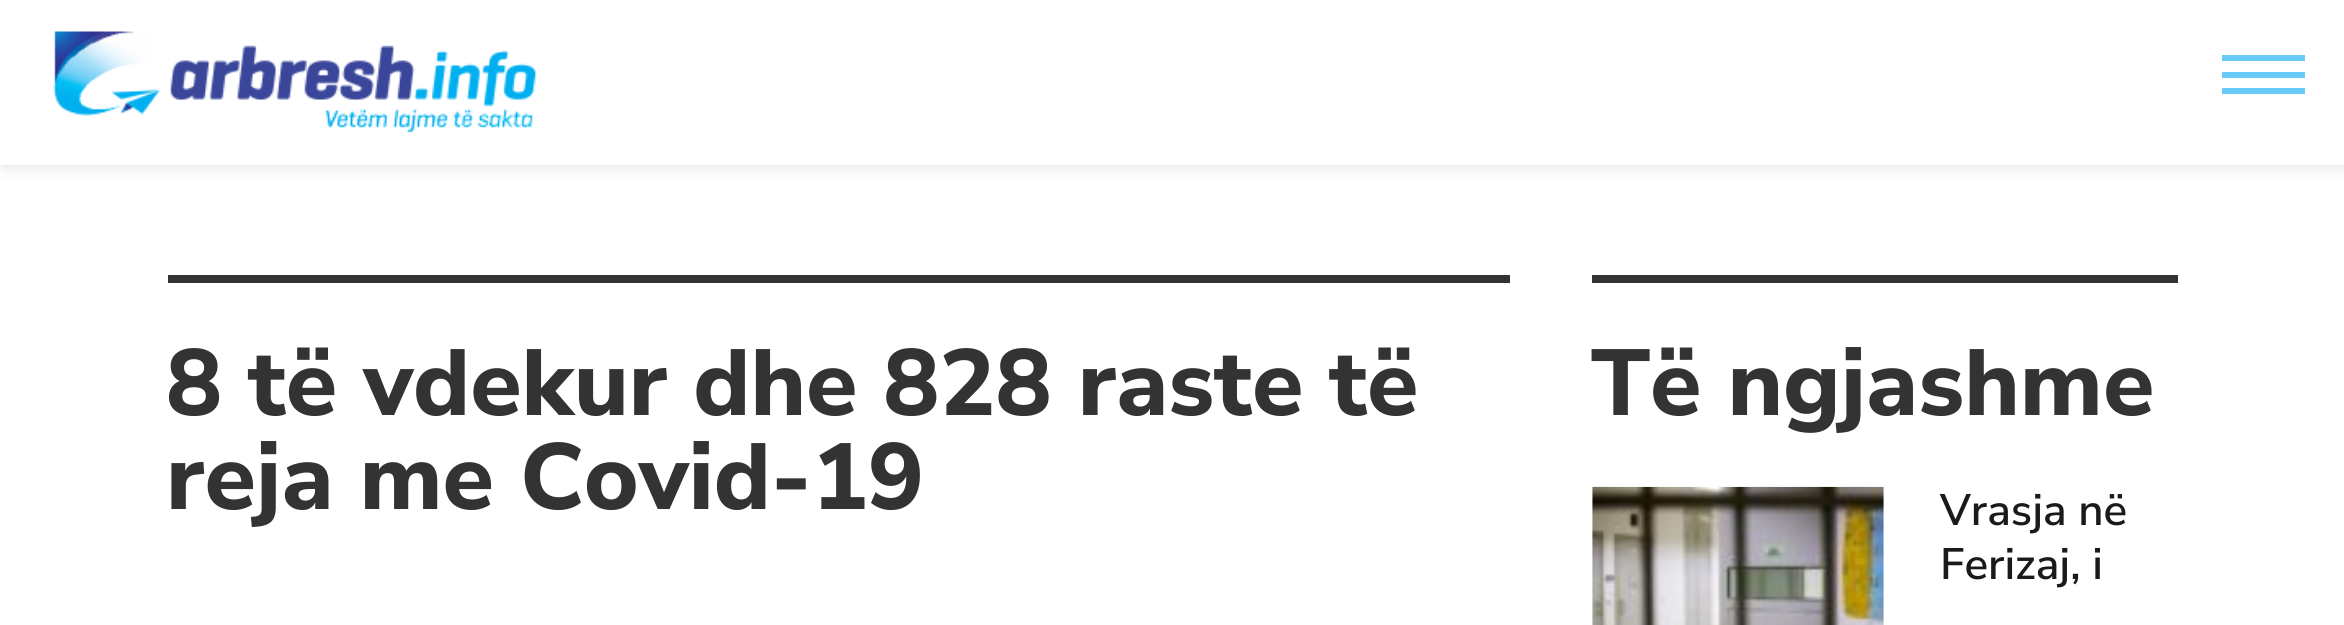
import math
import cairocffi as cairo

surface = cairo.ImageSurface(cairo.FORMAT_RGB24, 2344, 625)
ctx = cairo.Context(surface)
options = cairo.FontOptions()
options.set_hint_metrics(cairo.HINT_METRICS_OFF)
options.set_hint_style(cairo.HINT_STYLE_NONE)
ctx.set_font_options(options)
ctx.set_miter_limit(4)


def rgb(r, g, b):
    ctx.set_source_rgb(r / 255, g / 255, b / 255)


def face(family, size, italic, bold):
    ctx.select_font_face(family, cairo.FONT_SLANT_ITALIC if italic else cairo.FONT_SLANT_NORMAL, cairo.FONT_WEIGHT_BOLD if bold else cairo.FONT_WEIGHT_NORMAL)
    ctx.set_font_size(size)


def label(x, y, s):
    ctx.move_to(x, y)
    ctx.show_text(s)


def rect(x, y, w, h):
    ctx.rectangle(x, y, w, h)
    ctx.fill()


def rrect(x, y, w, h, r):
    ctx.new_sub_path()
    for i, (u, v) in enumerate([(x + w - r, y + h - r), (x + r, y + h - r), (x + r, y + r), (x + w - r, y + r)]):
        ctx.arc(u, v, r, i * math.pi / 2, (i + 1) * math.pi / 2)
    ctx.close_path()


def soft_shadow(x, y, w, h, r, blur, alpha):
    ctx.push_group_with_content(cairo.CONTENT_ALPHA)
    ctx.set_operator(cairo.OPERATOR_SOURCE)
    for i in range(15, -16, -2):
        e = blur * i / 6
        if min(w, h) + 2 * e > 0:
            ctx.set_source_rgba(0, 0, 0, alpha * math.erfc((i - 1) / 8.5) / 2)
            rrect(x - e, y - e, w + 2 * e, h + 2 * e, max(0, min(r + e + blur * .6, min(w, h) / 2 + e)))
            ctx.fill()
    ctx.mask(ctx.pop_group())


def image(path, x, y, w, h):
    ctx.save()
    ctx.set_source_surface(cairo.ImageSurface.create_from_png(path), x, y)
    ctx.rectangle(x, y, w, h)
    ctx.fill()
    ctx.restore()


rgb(255, 255, 255)
ctx.paint()
ctx.save()
ctx.rectangle(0, 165, 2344, 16)
ctx.clip()
rgb(221, 221, 221)
soft_shadow(3, 0, 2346, 165, 0, 8, 1)
ctx.restore()
image('image0.png', 53, 31, 483, 102)
rgb(104, 203, 248)
rect(2222, 55, 83, 6)
rect(2222, 72, 83, 6)
rect(2222, 88, 83, 6)
rgb(51, 51, 51)
rect(168, 275, 1342, 8)
face('Nunito Sans ExtraBold', 93.5, 0, 0)
label(166, 415, '8 të vdekur dhe 828 raste të')
label(166, 509, 'reja me Covid-19')
rect(1592, 275, 586, 8)
label(1591, 415, 'Të ngjashme')
image('image1.png', 1592, 486, 292, 139)
face('Nunito Sans SemiBold', 44, 0, 0)
rgb(26, 26, 26)
label(1940, 525, 'Vrasja në')
label(1940, 579, 'Ferizaj, i')
surface.write_to_png('render.png')
